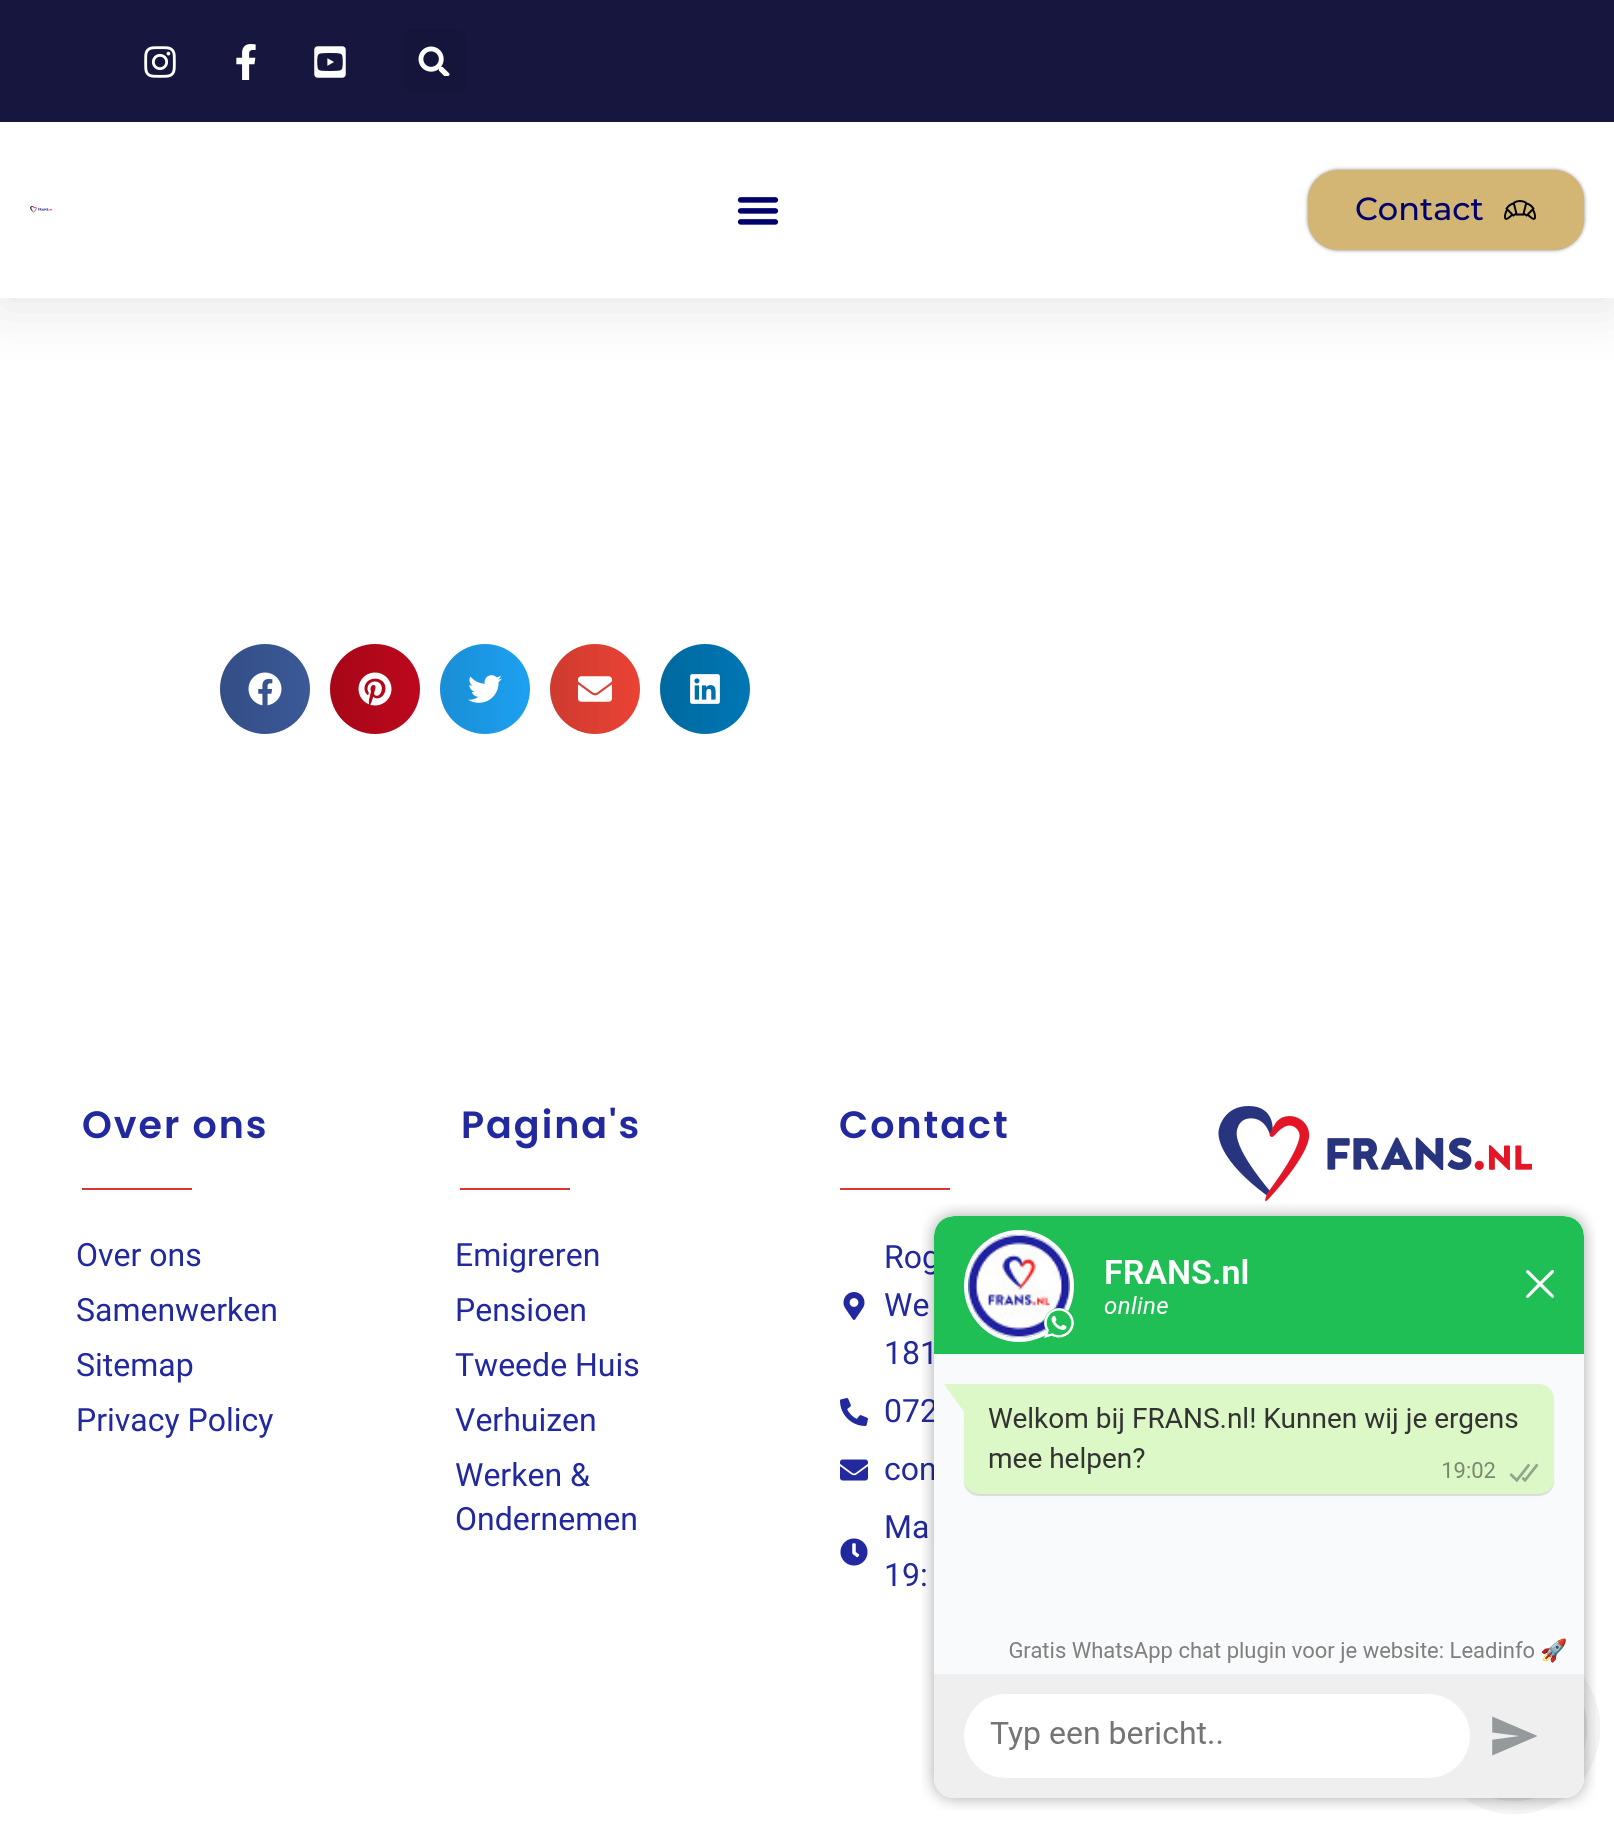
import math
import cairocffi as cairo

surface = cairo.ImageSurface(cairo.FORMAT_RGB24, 1614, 1828)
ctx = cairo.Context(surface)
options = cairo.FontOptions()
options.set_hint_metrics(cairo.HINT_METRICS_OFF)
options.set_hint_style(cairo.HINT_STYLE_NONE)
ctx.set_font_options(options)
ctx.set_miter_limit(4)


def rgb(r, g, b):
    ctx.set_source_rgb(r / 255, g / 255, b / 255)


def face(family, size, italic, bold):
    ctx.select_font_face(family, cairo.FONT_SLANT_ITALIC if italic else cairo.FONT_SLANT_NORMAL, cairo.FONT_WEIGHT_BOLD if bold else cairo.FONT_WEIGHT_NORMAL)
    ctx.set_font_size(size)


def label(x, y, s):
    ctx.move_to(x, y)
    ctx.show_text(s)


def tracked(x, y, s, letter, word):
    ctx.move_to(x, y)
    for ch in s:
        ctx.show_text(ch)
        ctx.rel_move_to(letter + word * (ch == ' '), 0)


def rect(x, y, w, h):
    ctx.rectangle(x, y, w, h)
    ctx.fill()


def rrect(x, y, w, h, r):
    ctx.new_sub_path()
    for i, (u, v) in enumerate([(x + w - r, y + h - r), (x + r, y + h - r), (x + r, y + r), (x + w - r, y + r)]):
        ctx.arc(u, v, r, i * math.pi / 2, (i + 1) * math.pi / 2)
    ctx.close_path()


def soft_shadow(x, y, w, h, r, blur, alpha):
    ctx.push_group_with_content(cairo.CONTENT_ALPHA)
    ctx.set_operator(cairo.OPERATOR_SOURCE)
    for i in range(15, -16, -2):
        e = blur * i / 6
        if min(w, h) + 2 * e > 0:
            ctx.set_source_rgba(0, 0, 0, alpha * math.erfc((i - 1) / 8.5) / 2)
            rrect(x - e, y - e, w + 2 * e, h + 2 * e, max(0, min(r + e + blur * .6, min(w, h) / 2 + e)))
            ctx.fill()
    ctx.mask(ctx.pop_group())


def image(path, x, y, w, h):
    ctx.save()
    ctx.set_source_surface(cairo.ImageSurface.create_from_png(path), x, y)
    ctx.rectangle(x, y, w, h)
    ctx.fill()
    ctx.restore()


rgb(255, 255, 255)
ctx.paint()
rgb(0, 0, 0)
soft_shadow(0, 10, 1614, 298, 0, 30, 0.1)
rgb(22, 22, 63)
rect(0, 0, 1614, 122)
image('image0.png', 144, 46, 32, 32)
image('image1.png', 236, 44, 20, 36)
image('image2.png', 314, 46, 32, 32)
rgb(21, 21, 60)
rrect(404, 30, 62, 62, 6)
ctx.fill()
image('image3.png', 418, 46, 32, 30)
rgb(255, 255, 255)
rect(0, 122, 1614, 176)
image('image4.png', 30, 206, 22, 7)
image('image5.png', 737, 197, 42, 28)
rgb(0, 0, 0)
soft_shadow(1308, 170, 276, 80, 30, 2, 0.5)
rgb(211, 181, 116)
rrect(1308, 170, 276, 80, 30)
ctx.fill()
face('Montserrat Medium', 32, 0, 0)
rgb(1, 1, 109)
label(1355, 220, 'Contact')
image('image6.png', 1504, 200, 32, 20)
rgb(59, 89, 152)
ctx.arc(265, 689, 45, 0, 2 * math.pi)
ctx.fill()
gradient = cairo.LinearGradient(220, 689, 310, 689)
gradient.add_color_stop_rgba(0, 0, 0, 0, 0.12)
gradient.add_color_stop_rgba(1, 0, 0, 0, 0)
ctx.set_source(gradient)
ctx.arc(265, 689, 45, 0, 2 * math.pi)
ctx.fill()
image('image7.png', 248, 672, 34, 34)
rgb(189, 8, 28)
ctx.arc(375, 689, 45, 0, 2 * math.pi)
ctx.fill()
gradient = cairo.LinearGradient(330, 689, 420, 689)
gradient.add_color_stop_rgba(0, 0, 0, 0, 0.12)
gradient.add_color_stop_rgba(1, 0, 0, 0, 0)
ctx.set_source(gradient)
ctx.arc(375, 689, 45, 0, 2 * math.pi)
ctx.fill()
image('image8.png', 358, 672, 34, 34)
rgb(29, 161, 242)
ctx.arc(485, 689, 45, 0, 2 * math.pi)
ctx.fill()
gradient = cairo.LinearGradient(440, 689, 530, 689)
gradient.add_color_stop_rgba(0, 0, 0, 0, 0.12)
gradient.add_color_stop_rgba(1, 0, 0, 0, 0)
ctx.set_source(gradient)
ctx.arc(485, 689, 45, 0, 2 * math.pi)
ctx.fill()
image('image9.png', 468, 675, 34, 28)
rgb(234, 67, 53)
ctx.arc(595, 689, 45, 0, 2 * math.pi)
ctx.fill()
gradient = cairo.LinearGradient(550, 689, 640, 689)
gradient.add_color_stop_rgba(0, 0, 0, 0, 0.12)
gradient.add_color_stop_rgba(1, 0, 0, 0, 0)
ctx.set_source(gradient)
ctx.arc(595, 689, 45, 0, 2 * math.pi)
ctx.fill()
image('image10.png', 578, 676, 34, 26)
rgb(0, 119, 181)
ctx.arc(705, 689, 45, 0, 2 * math.pi)
ctx.fill()
gradient = cairo.LinearGradient(660, 689, 750, 689)
gradient.add_color_stop_rgba(0, 0, 0, 0, 0.12)
gradient.add_color_stop_rgba(1, 0, 0, 0, 0)
ctx.set_source(gradient)
ctx.arc(705, 689, 45, 0, 2 * math.pi)
ctx.fill()
image('image11.png', 690, 674, 30, 30)
face('Poppins SemiBold', 38, 0, 0)
rgb(34, 41, 158)
tracked(82, 1138, 'Over ons', 2, 0)
rgb(221, 51, 51)
rect(82, 1188, 110, 2)
face('Roboto', 32, 0, 0)
rgb(34, 41, 158)
label(76, 1266, 'Over ons')
label(76, 1321, 'Samenwerken')
label(76, 1376, 'Sitemap')
label(76, 1431, 'Privacy Policy')
face('Poppins SemiBold', 38, 0, 0)
tracked(461, 1138, 'Pagina\'s', 2, 0)
rgb(221, 51, 51)
rect(460, 1188, 110, 2)
face('Roboto', 32, 0, 0)
rgb(34, 41, 158)
label(455, 1266, 'Emigreren')
label(455, 1321, 'Pensioen')
label(455, 1376, 'Tweede Huis')
label(455, 1431, 'Verhuizen')
label(455, 1486, 'Werken &')
label(455, 1530, 'Ondernemen')
face('Poppins SemiBold', 38, 0, 0)
tracked(839, 1138, 'Contact', 2, 0)
rgb(221, 51, 51)
rect(840, 1188, 110, 2)
image('image12.png', 843, 1292, 22, 28)
face('Roboto', 32, 0, 0)
rgb(34, 41, 158)
label(884, 1268, 'Rog')
label(884, 1316, 'We')
label(884, 1364, '181')
image('image13.png', 840, 1398, 28, 28)
label(884, 1422, '072')
image('image14.png', 840, 1459, 28, 22)
label(884, 1480, 'con')
image('image15.png', 840, 1538, 28, 28)
label(884, 1538, 'Ma')
label(884, 1586, '19:')
image('image16.png', 1218, 1106, 314, 96)
image('image18.png', 1464, 1678, 136, 136)
image('image17.png', 922, 1204, 674, 606)
surface.write_to_png('render.png')
